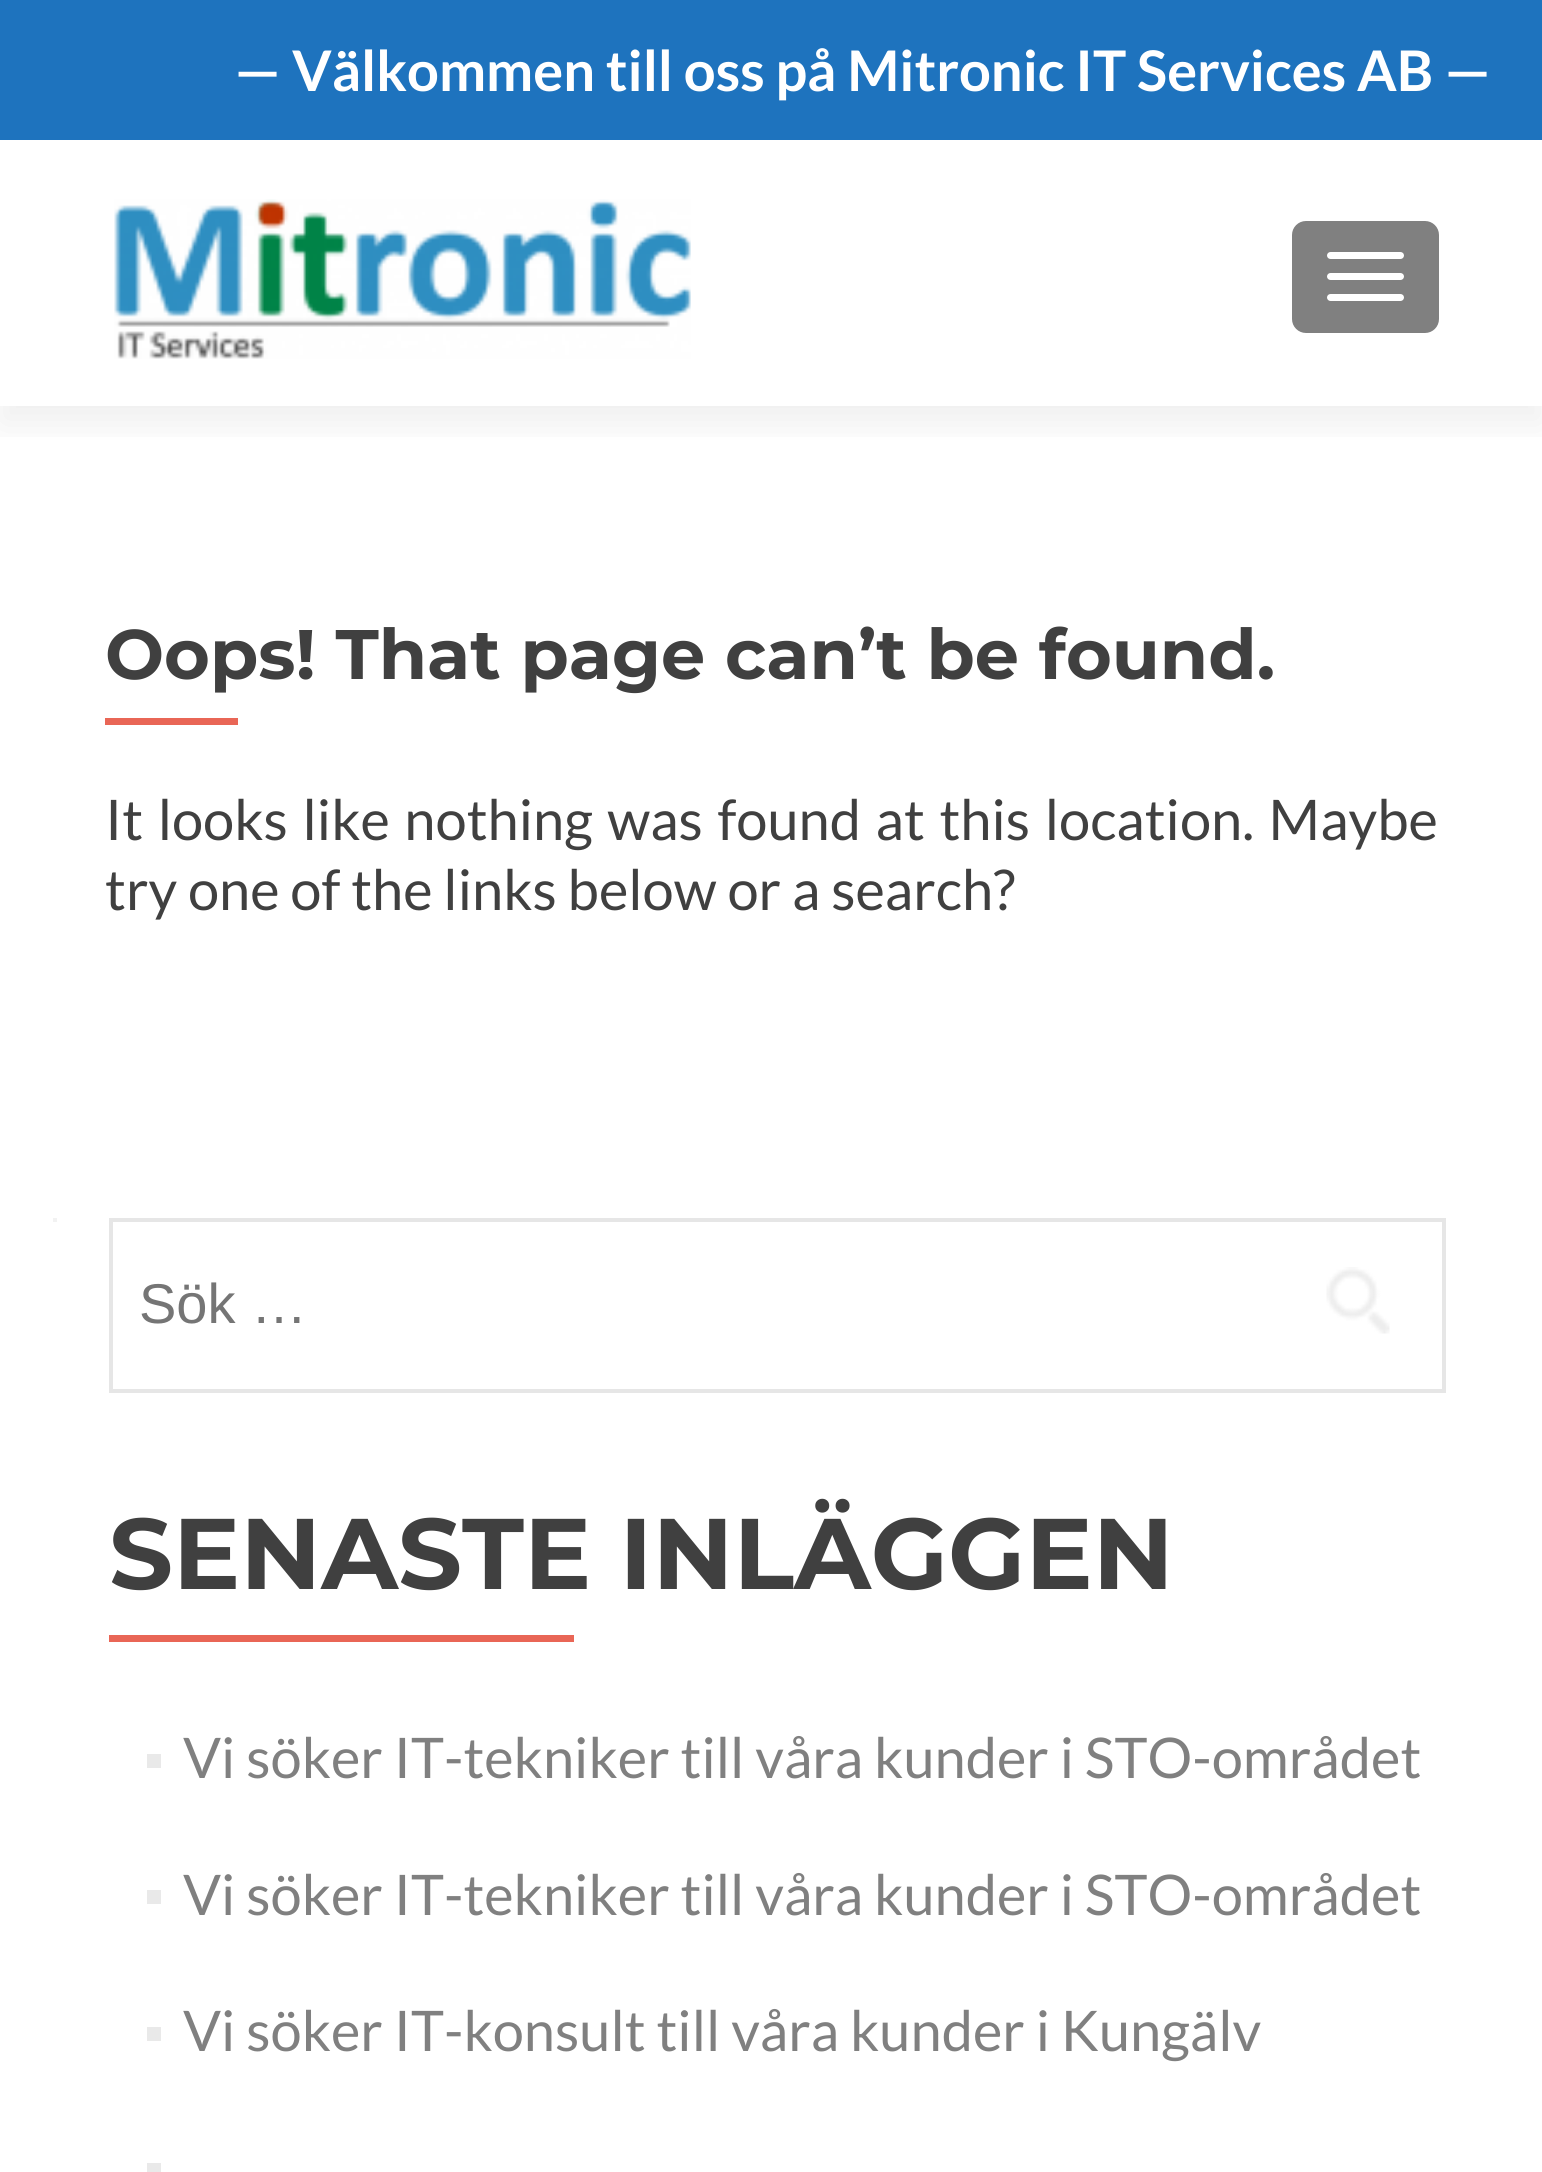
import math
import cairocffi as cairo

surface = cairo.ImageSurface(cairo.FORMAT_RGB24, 1542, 2172)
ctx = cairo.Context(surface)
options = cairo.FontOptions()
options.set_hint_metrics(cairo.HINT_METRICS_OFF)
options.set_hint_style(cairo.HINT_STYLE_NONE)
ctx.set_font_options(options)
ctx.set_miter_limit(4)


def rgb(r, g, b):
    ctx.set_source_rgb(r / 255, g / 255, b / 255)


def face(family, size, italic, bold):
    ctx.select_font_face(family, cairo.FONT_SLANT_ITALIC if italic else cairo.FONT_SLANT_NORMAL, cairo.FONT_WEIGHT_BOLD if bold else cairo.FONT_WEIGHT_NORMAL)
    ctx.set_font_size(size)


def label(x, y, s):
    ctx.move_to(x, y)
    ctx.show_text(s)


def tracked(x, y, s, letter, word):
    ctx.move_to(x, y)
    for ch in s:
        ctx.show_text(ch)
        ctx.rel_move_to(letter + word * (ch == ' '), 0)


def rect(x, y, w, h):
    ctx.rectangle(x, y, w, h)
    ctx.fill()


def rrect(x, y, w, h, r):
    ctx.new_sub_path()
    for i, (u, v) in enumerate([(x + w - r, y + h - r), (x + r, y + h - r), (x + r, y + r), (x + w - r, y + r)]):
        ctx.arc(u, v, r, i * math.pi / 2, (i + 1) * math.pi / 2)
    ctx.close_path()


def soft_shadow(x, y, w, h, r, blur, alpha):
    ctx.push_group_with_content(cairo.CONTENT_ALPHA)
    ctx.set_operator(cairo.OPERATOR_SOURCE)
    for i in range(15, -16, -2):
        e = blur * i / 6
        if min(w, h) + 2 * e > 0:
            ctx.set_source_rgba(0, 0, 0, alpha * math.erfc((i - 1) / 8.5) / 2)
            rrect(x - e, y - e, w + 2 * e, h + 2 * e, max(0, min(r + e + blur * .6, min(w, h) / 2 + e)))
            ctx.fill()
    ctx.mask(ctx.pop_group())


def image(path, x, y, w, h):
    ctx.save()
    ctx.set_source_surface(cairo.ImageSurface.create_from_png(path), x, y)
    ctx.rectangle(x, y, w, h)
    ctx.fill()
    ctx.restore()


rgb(255, 255, 255)
ctx.paint()
rgb(30, 115, 190)
rect(0, 0, 1542, 140)
face('Lato', 56, 0, 1)
rgb(255, 255, 255)
label(234, 91, '— Välkommen till oss på Mitronic IT Services AB —')
ctx.save()
ctx.rectangle(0, 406, 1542, 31)
ctx.clip()
rgb(50, 50, 50)
soft_shadow(0, 158, 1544, 266, 0, 19, 0.08)
ctx.restore()
image('image0.png', 114, 199, 577, 160)
rgb(128, 128, 128)
rrect(1292, 221, 147, 112, 14)
ctx.fill()
rgb(255, 255, 255)
rrect(1327, 252, 77, 7, 3.5)
ctx.fill()
rrect(1327, 273, 77, 7, 3.5)
ctx.fill()
rrect(1327, 294, 77, 7, 3.5)
ctx.fill()
face('Montserrat Thin', 70, 0, 0)
rgb(64, 64, 64)
label(105, 679, 'Oops! That page can’t be found.')
rgb(233, 102, 86)
rect(105, 718, 133, 7)
face('Lato', 56, 0, 0)
rgb(64, 64, 64)
tracked(105, 840, 'It looks like nothing was found at this location. Maybe', 0, 3.75)
label(105, 910, 'try one of the links below or a search?')
rgb(242, 242, 242)
rect(53, 1218, 4, 4)
ctx.rectangle(111, 1220, 1333, 171)
rgb(230, 230, 230)
ctx.set_line_width(4)
ctx.stroke()
face('Liberation Sans', 56, 0, 0)
rgb(117, 117, 117)
label(139, 1323, 'Sök …')
image('image1.png', 1326, 1267, 64, 67)
face('Montserrat Thin', 100.25, 0, 0)
rgb(64, 64, 64)
label(109, 1589, 'SENASTE INLÄGGEN')
rgb(233, 102, 86)
rect(109, 1635, 465, 7)
rgb(233, 233, 233)
rect(147, 1754, 14, 14)
face('Lato', 56, 0, 0)
rgb(128, 128, 128)
label(183, 1778, 'Vi söker IT-tekniker till våra kunder i STO-området')
rgb(233, 233, 233)
rect(147, 1890, 14, 14)
rgb(128, 128, 128)
label(183, 1915, 'Vi söker IT-tekniker till våra kunder i STO-området')
rgb(233, 233, 233)
rect(147, 2027, 14, 14)
rgb(128, 128, 128)
label(183, 2051, 'Vi söker IT-konsult till våra kunder i Kungälv')
rgb(233, 233, 233)
rect(147, 2163, 14, 9)
surface.write_to_png('render.png')
